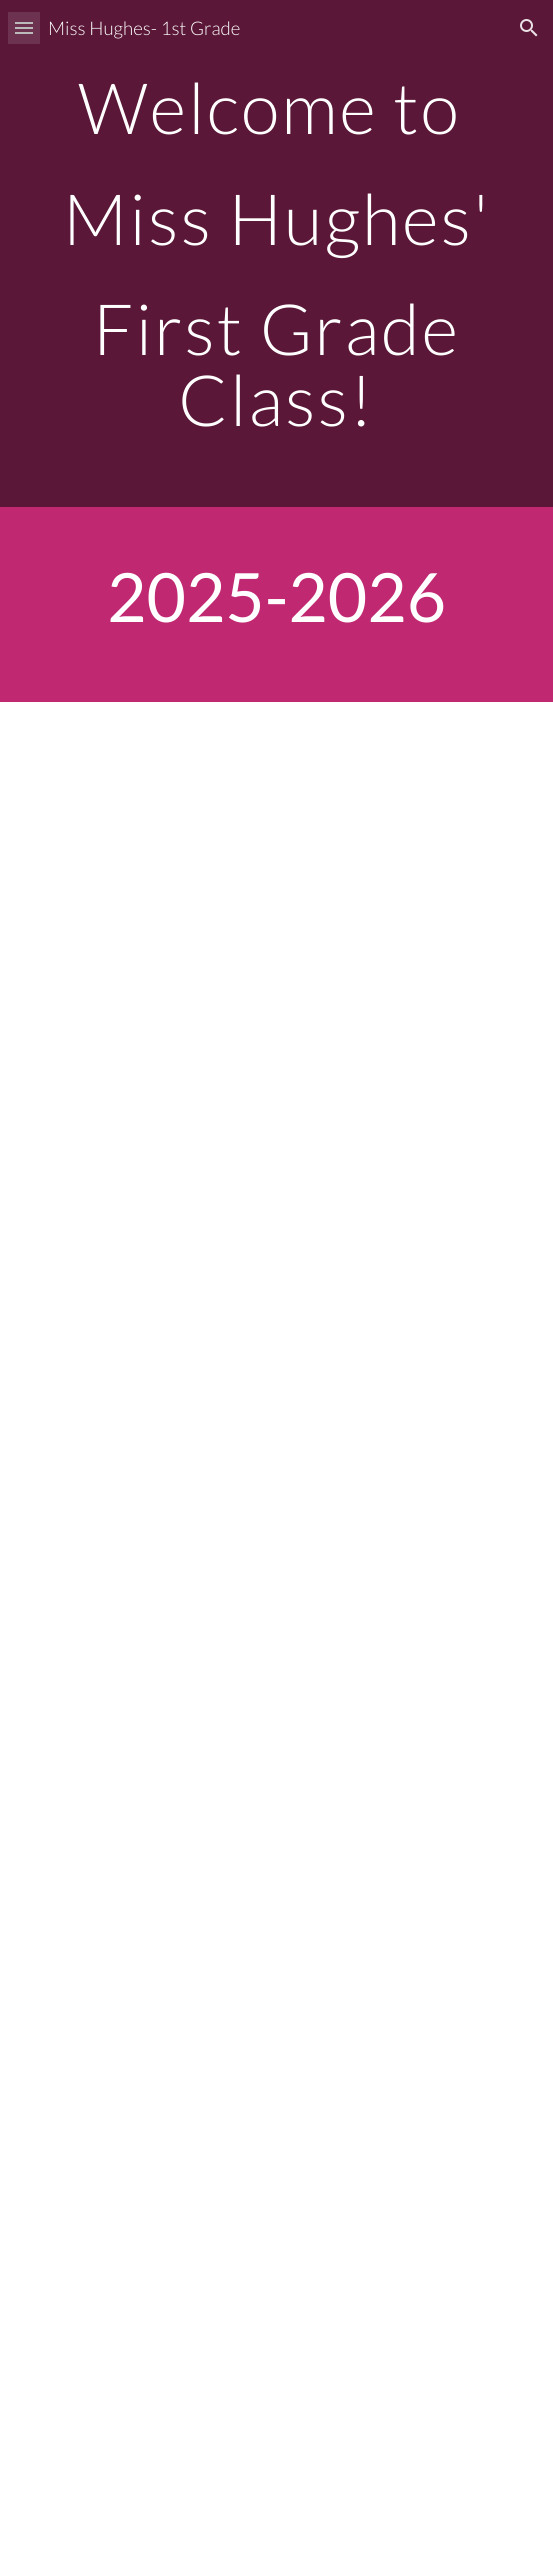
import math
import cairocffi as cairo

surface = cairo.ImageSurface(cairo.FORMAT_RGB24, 553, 2562)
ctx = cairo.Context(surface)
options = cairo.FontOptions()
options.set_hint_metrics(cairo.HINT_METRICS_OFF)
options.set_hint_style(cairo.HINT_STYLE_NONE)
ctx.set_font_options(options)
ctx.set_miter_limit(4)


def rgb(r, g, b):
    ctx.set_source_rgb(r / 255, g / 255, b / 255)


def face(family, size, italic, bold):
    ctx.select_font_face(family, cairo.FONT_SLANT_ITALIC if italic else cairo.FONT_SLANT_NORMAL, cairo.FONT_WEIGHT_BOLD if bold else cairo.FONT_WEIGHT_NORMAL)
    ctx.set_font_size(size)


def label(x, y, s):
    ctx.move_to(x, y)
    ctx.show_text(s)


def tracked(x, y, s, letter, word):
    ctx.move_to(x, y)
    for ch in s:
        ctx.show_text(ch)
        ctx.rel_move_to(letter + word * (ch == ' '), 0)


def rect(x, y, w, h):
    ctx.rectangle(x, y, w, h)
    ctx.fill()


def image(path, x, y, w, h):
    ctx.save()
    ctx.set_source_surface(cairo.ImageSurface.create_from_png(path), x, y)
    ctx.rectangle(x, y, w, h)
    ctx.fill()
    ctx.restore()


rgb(255, 255, 255)
ctx.paint()
rgb(90, 23, 55)
rect(0, 0, 553, 507)
rgb(178, 178, 178)
rect(15, 22, 18, 2)
rect(15, 27, 18, 2)
rect(15, 32, 18, 2)
ctx.set_source_rgba(1, 1, 1, 0.12)
rect(8, 12, 32, 32)
face('Lato Light', 18.75, 0, 0)
rgb(255, 255, 255)
label(48, 35, 'Miss Hughes- 1st Grade')
image('image0.png', 520, 19, 18, 18)
face('Lato Light', 70.75, 0, 0)
tracked(78, 134, 'Welcome to', 2, 0)
tracked(63, 245, 'Miss Hughes\'', 2, 0)
tracked(93, 355, 'First Grade', 2, 0)
tracked(178, 426, 'Class!', 2, 0)
rgb(193, 40, 114)
rect(0, 507, 553, 195)
face('Lato', 68, 0, 0)
rgb(255, 255, 255)
label(107, 622, '2025-2026')
surface.write_to_png('render.png')
